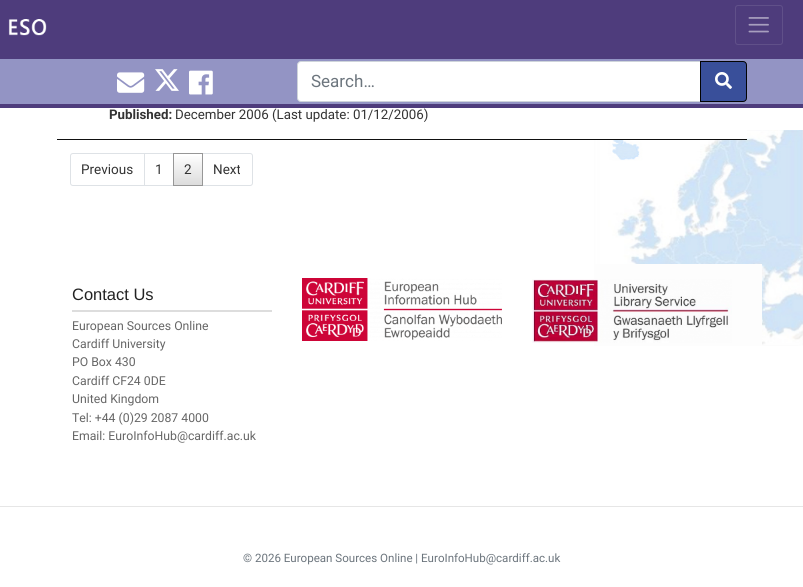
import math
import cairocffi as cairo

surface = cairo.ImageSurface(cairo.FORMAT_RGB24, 803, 587)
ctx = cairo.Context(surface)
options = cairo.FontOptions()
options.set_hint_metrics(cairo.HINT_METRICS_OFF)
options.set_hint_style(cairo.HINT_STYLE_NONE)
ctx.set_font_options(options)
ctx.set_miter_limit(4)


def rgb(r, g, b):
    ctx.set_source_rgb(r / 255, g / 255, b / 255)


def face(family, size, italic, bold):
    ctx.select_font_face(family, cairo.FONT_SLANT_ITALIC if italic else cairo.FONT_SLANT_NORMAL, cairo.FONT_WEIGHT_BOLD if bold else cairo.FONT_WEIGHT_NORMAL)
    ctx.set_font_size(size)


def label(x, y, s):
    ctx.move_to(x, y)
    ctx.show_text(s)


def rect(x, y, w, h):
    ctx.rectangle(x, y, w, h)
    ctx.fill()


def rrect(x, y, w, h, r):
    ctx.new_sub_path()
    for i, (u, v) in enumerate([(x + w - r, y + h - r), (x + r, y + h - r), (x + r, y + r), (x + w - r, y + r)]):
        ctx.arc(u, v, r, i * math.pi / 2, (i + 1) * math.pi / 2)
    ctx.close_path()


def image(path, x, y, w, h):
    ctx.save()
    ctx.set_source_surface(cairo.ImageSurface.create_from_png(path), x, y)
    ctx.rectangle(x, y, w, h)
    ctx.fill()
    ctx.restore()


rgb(255, 255, 255)
ctx.paint()
image('image0.png', 594, 130, 209, 216)
rgb(78, 60, 124)
rect(0, 0, 803, 59)
image('image1.png', 8, 19, 39, 17)
rrect(735.5, 5.5, 47, 39, 2.5)
rgb(96, 80, 137)
ctx.set_line_width(1)
ctx.stroke()
image('image2.png', 748, 17, 21, 16)
rgb(147, 148, 196)
rect(0, 59, 803, 45)
rgb(78, 60, 124)
rect(0, 104, 803, 4)
image('image3.png', 117, 72, 28, 21)
image('image4.png', 155, 69, 24, 22)
image('image5.png', 189, 70, 24, 25)
rgb(255, 255, 255)
ctx.new_path()
ctx.move_to(301, 61.5)
ctx.line_to(700.5, 61.5)
ctx.line_to(700.5, 101.5)
ctx.line_to(301, 101.5)
ctx.curve_to(299, 101.5, 297.5, 100, 297.5, 98)
ctx.line_to(297.5, 65)
ctx.curve_to(297.5, 63, 299, 61.5, 301, 61.5)
ctx.close_path()
ctx.fill_preserve()
rgb(206, 212, 218)
ctx.stroke()
face('Roboto', 17, 0, 0)
rgb(108, 117, 125)
label(311, 87, 'Search…')
rgb(57, 79, 154)
ctx.new_path()
ctx.move_to(700.5, 61.5)
ctx.line_to(743, 61.5)
ctx.curve_to(745, 61.5, 746.5, 63, 746.5, 65)
ctx.line_to(746.5, 98)
ctx.curve_to(746.5, 100, 745, 101.5, 743, 101.5)
ctx.line_to(700.5, 101.5)
ctx.close_path()
ctx.fill_preserve()
rgb(3, 3, 3)
ctx.stroke()
image('image6.png', 715, 72, 17, 17)
rgb(17, 17, 17)
rect(57, 139, 690, 1)
rgb(255, 255, 255)
rect(594, 130, 153, 9)
face('Roboto', 13.3, 0, 1)
rgb(51, 51, 51)
label(109, 119, 'Published:')
face('Roboto', 13.3, 0, 0)
label(175, 119, 'December 2006 (Last update: 01/12/2006)')
ctx.new_path()
ctx.move_to(73, 153.5)
ctx.line_to(144.5, 153.5)
ctx.line_to(144.5, 185.5)
ctx.line_to(73, 185.5)
ctx.curve_to(71.5, 185.5, 70.5, 184.5, 70.5, 183)
ctx.line_to(70.5, 156)
ctx.curve_to(70.5, 154.5, 71.5, 153.5, 73, 153.5)
ctx.close_path()
rgb(222, 226, 230)
ctx.stroke()
face('Roboto', 13.5, 0, 0)
rgb(51, 51, 51)
label(81, 174, 'Previous')
ctx.rectangle(144.5, 153.5, 29, 32)
rgb(222, 226, 230)
ctx.stroke()
rgb(51, 51, 51)
label(155, 174, '1')
gradient = cairo.LinearGradient(188, 154, 188, 185)
gradient.add_color_stop_rgba(0, 1, 1, 1, 1)
gradient.add_color_stop_rgba(1, 0.863, 0.863, 0.863, 1)
ctx.set_source(gradient)
rect(174, 156, 28, 29)
ctx.new_path()
ctx.move_to(202.5, 153.5)
ctx.line_to(250, 153.5)
ctx.curve_to(251.5, 153.5, 252.5, 154.5, 252.5, 156)
ctx.line_to(252.5, 183)
ctx.curve_to(252.5, 184.5, 251.5, 185.5, 250, 185.5)
ctx.line_to(202.5, 185.5)
ctx.close_path()
rgb(222, 226, 230)
ctx.stroke()
ctx.rectangle(173.5, 153.5, 29, 32)
rgb(151, 151, 151)
ctx.stroke()
rgb(51, 51, 51)
label(184, 174, '2')
label(213, 174, 'Next')
rgb(253, 253, 253)
rect(594, 264, 168, 82)
rgb(221, 221, 221)
rect(72, 310, 200, 2)
face('Liberation Sans', 16.5, 0, 0)
rgb(34, 34, 34)
label(72, 300, 'Contact Us')
face('Roboto', 12.25, 0, 0)
rgb(102, 102, 102)
label(72, 330, 'European Sources Online')
label(72, 348, 'Cardiff University')
label(72, 366, 'PO Box 430')
label(72, 385, 'Cardiff CF24 0DE')
label(72, 403, 'United Kingdom')
label(72, 422, 'Tel: +44 (0)29 2087 4000')
label(72, 440, 'Email: EuroInfoHub@cardiff.ac.uk')
image('image7.png', 302, 278, 200, 63)
image('image8.png', 532, 279, 200, 64)
rgb(230, 230, 230)
rect(0, 506, 803, 1)
face('Roboto', 11.55, 0, 0)
rgb(108, 117, 125)
label(243, 562, '© 2026 European Sources Online | EuroInfoHub@cardiff.ac.uk')
surface.write_to_png('render.png')
